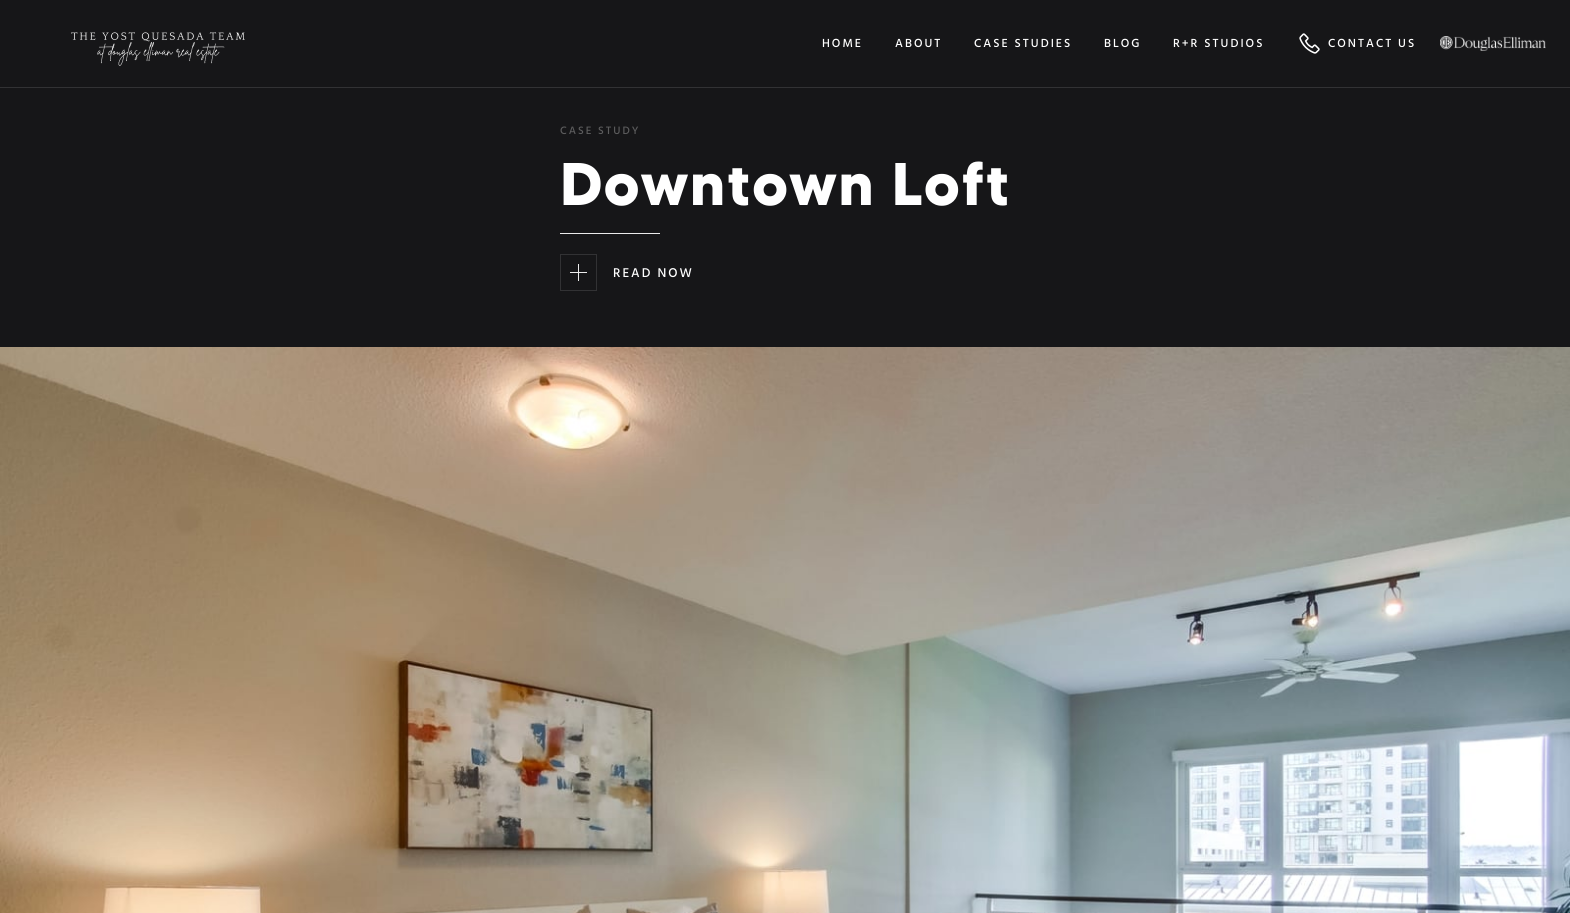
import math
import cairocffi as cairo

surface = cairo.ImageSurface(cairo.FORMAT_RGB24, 1570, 913)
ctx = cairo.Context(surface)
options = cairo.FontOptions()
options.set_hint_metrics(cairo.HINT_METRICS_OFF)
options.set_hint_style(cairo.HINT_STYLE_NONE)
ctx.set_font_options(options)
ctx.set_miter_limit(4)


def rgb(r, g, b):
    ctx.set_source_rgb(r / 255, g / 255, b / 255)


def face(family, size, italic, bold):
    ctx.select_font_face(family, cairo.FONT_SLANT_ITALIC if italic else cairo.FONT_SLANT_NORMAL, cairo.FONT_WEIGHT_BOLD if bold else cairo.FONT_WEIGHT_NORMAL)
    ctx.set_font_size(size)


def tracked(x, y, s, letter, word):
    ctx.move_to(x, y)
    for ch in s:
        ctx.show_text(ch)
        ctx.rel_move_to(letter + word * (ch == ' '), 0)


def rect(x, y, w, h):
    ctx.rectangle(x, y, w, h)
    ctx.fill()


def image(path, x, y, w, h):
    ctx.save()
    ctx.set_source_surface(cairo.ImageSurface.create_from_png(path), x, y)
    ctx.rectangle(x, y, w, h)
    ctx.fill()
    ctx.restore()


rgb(22, 22, 24)
ctx.paint()
rgb(50, 50, 52)
rect(0, 87, 1570, 1)
image('image0.png', 71, 32, 174, 34)
face('Hind Medium', 12, 0, 0)
rgb(255, 255, 255)
tracked(822, 47, 'HOME', 2, 0)
tracked(895, 47, 'ABOUT', 2, 0)
tracked(974, 47, 'CASE STUDIES', 2, 0)
tracked(1104, 47, 'BLOG', 2, 0)
tracked(1173, 47, 'R+R STUDIOS', 2, 0)
image('image1.png', 1299, 33, 21, 21)
tracked(1328, 47, 'CONTACT US', 2, 0)
image('image2.png', 1440, 36, 106, 15)
face('Hind Medium', 11, 0, 0)
rgb(92, 92, 93)
tracked(560, 134, 'CASE STUDY', 2, 0)
face('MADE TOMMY', 60, 0, 1)
rgb(255, 255, 255)
tracked(560, 205, 'Downtown Loft', 1, 0)
rgb(235, 235, 235)
rect(560, 233, 100, 1)
ctx.rectangle(560.5, 254.5, 36, 36)
rgb(50, 50, 52)
ctx.set_line_width(1)
ctx.stroke()
rgb(235, 235, 235)
rect(570, 272, 17, 1)
rect(578, 264, 1, 17)
face('Hind Medium', 13, 0, 0)
rgb(255, 255, 255)
tracked(613, 277, 'READ NOW', 2, 0)
image('image3.png', 0, 347, 1570, 566)
surface.write_to_png('render.png')
